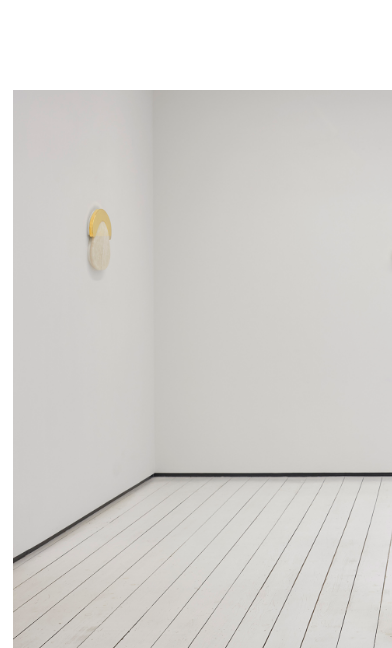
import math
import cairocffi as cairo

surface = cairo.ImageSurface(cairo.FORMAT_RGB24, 392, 648)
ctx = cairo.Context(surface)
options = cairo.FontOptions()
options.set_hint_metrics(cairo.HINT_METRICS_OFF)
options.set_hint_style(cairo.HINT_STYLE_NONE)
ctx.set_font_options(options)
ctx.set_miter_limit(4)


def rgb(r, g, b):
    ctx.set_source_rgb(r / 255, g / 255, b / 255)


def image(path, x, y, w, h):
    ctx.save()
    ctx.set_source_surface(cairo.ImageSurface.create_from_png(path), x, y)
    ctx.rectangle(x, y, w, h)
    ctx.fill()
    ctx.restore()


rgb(255, 255, 255)
ctx.paint()
image('image0.png', 13, 90, 379, 558)
surface.write_to_png('render.png')
